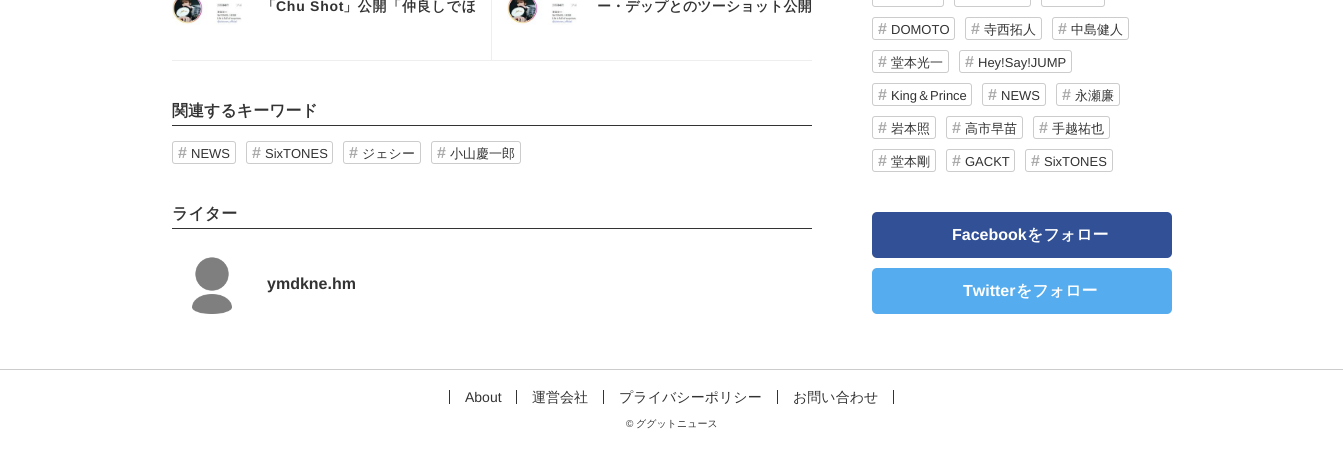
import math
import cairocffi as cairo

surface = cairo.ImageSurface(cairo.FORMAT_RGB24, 1343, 449)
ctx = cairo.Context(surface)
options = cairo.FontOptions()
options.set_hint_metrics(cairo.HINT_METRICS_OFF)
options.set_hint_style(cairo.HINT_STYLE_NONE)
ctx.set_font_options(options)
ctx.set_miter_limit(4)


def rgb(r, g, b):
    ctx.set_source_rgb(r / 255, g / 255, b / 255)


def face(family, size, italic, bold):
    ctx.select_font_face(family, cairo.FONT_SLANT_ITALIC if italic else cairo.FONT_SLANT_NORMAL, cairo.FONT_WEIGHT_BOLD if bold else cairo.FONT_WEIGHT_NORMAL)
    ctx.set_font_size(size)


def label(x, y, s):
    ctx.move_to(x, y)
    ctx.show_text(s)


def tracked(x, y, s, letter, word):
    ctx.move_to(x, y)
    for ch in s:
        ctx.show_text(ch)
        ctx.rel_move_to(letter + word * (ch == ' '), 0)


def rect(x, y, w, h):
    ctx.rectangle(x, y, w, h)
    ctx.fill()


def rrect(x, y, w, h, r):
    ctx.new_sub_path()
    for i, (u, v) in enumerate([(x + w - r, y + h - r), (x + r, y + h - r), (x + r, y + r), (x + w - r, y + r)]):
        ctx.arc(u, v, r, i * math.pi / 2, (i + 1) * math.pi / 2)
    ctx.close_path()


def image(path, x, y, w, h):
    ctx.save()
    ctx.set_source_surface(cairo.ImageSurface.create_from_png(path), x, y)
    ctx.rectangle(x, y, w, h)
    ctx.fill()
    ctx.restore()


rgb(255, 255, 255)
ctx.paint()
rgb(238, 238, 238)
rect(491, 0, 1, 61)
rect(172, 60, 640, 1)
image('image0.png', 172, 0, 70, 25)
face('WenQuanYi Zen Hei', 14, 0, 1)
rgb(51, 51, 51)
tracked(262, 11, '「', 0.75, 0)
face('Liberation Sans', 14, 0, 1)
tracked(276, 11, 'Chu Shot', 0.75, 0)
face('WenQuanYi Zen Hei', 14, 0, 1)
tracked(343, 11, '」公開「仲良しでほ', 0.75, 0)
image('image1.png', 507, 0, 70, 25)
tracked(597, 11, 'ー・デップとのツーショット公開', 0.1, 0)
rect(172, 125, 640, 1)
face('WenQuanYi Zen Hei', 16, 0, 1)
label(172, 116, '関連するキーワード')
rrect(172.5, 141.5, 63, 22, 2.5)
rgb(204, 204, 204)
ctx.set_line_width(1)
ctx.stroke()
face('Liberation Sans', 16, 0, 1)
rgb(170, 170, 170)
label(178, 158, '#')
face('Liberation Sans', 13, 0, 0)
rgb(51, 51, 51)
label(191, 158, 'NEWS')
rrect(246.5, 141.5, 86, 22, 2.5)
rgb(204, 204, 204)
ctx.stroke()
face('Liberation Sans', 16, 0, 1)
rgb(170, 170, 170)
label(252, 158, '#')
face('Liberation Sans', 13, 0, 0)
rgb(51, 51, 51)
label(265, 158, 'SixTONES')
rrect(343.5, 141.5, 77, 22, 2.5)
rgb(204, 204, 204)
ctx.stroke()
face('Liberation Sans', 16, 0, 1)
rgb(170, 170, 170)
label(349, 158, '#')
face('WenQuanYi Zen Hei Medium', 13, 0, 0)
rgb(51, 51, 51)
label(362, 158, 'ジェシー')
rrect(431.5, 141.5, 89, 22, 2.5)
rgb(204, 204, 204)
ctx.stroke()
face('Liberation Sans', 16, 0, 1)
rgb(170, 170, 170)
label(437, 158, '#')
face('WenQuanYi Zen Hei Medium', 13, 0, 0)
rgb(51, 51, 51)
label(450, 158, '小山慶一郎')
rect(172, 228, 640, 1)
face('WenQuanYi Zen Hei', 16, 0, 1)
label(172, 219, 'ライター')
image('image2.png', 192, 257, 40, 57)
face('Liberation Sans', 16, 0, 1)
label(267, 289, 'ymdkne.hm')
rrect(872.5, -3.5, 71, 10, 2.5)
rgb(204, 204, 204)
ctx.stroke()
rrect(954.5, -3.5, 76, 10, 2.5)
ctx.stroke()
rrect(1041.5, -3.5, 63, 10, 2.5)
ctx.stroke()
rrect(872.5, 17.5, 82, 22, 2.5)
ctx.stroke()
rgb(170, 170, 170)
label(878, 34, '#')
face('Liberation Sans', 13, 0, 0)
rgb(51, 51, 51)
label(891, 34, 'DOMOTO')
rrect(965.5, 17.5, 76, 22, 2.5)
rgb(204, 204, 204)
ctx.stroke()
face('Liberation Sans', 16, 0, 1)
rgb(170, 170, 170)
label(971, 34, '#')
face('WenQuanYi Zen Hei Medium', 13, 0, 0)
rgb(51, 51, 51)
label(984, 34, '寺西拓人')
rrect(1052.5, 17.5, 76, 22, 2.5)
rgb(204, 204, 204)
ctx.stroke()
face('Liberation Sans', 16, 0, 1)
rgb(170, 170, 170)
label(1058, 34, '#')
face('WenQuanYi Zen Hei Medium', 13, 0, 0)
rgb(51, 51, 51)
label(1071, 34, '中島健人')
rrect(872.5, 50.5, 76, 22, 2.5)
rgb(204, 204, 204)
ctx.stroke()
face('Liberation Sans', 16, 0, 1)
rgb(170, 170, 170)
label(878, 67, '#')
face('WenQuanYi Zen Hei Medium', 13, 0, 0)
rgb(51, 51, 51)
label(891, 67, '堂本光一')
rrect(959.5, 50.5, 112, 22, 2.5)
rgb(204, 204, 204)
ctx.stroke()
face('Liberation Sans', 16, 0, 1)
rgb(170, 170, 170)
label(965, 67, '#')
face('Liberation Sans', 13, 0, 0)
rgb(51, 51, 51)
label(978, 67, 'Hey!Say!JUMP')
rrect(872.5, 83.5, 99, 22, 2.5)
rgb(204, 204, 204)
ctx.stroke()
face('Liberation Sans', 16, 0, 1)
rgb(170, 170, 170)
label(878, 100, '#')
face('Liberation Sans', 13, 0, 0)
rgb(51, 51, 51)
label(891, 100, 'King')
face('WenQuanYi Zen Hei Medium', 13, 0, 0)
label(917, 100, '＆')
face('Liberation Sans', 13, 0, 0)
label(930, 100, 'Prince')
rrect(982.5, 83.5, 63, 22, 2.5)
rgb(204, 204, 204)
ctx.stroke()
face('Liberation Sans', 16, 0, 1)
rgb(170, 170, 170)
label(988, 100, '#')
face('Liberation Sans', 13, 0, 0)
rgb(51, 51, 51)
label(1001, 100, 'NEWS')
rrect(1056.5, 83.5, 63, 22, 2.5)
rgb(204, 204, 204)
ctx.stroke()
face('Liberation Sans', 16, 0, 1)
rgb(170, 170, 170)
label(1062, 100, '#')
face('WenQuanYi Zen Hei Medium', 13, 0, 0)
rgb(51, 51, 51)
label(1075, 100, '永瀬廉')
rrect(872.5, 116.5, 63, 22, 2.5)
rgb(204, 204, 204)
ctx.stroke()
face('Liberation Sans', 16, 0, 1)
rgb(170, 170, 170)
label(878, 133, '#')
face('WenQuanYi Zen Hei Medium', 13, 0, 0)
rgb(51, 51, 51)
label(891, 133, '岩本照')
rrect(946.5, 116.5, 76, 22, 2.5)
rgb(204, 204, 204)
ctx.stroke()
face('Liberation Sans', 16, 0, 1)
rgb(170, 170, 170)
label(952, 133, '#')
face('WenQuanYi Zen Hei Medium', 13, 0, 0)
rgb(51, 51, 51)
label(965, 133, '高市早苗')
rrect(1033.5, 116.5, 76, 22, 2.5)
rgb(204, 204, 204)
ctx.stroke()
face('Liberation Sans', 16, 0, 1)
rgb(170, 170, 170)
label(1039, 133, '#')
face('WenQuanYi Zen Hei Medium', 13, 0, 0)
rgb(51, 51, 51)
label(1052, 133, '手越祐也')
rrect(872.5, 149.5, 63, 22, 2.5)
rgb(204, 204, 204)
ctx.stroke()
face('Liberation Sans', 16, 0, 1)
rgb(170, 170, 170)
label(878, 166, '#')
face('WenQuanYi Zen Hei Medium', 13, 0, 0)
rgb(51, 51, 51)
label(891, 166, '堂本剛')
rrect(946.5, 149.5, 68, 22, 2.5)
rgb(204, 204, 204)
ctx.stroke()
face('Liberation Sans', 16, 0, 1)
rgb(170, 170, 170)
label(952, 166, '#')
face('Liberation Sans', 13, 0, 0)
rgb(51, 51, 51)
label(965, 166, 'GACKT')
rrect(1025.5, 149.5, 87, 22, 2.5)
rgb(204, 204, 204)
ctx.stroke()
face('Liberation Sans', 16, 0, 1)
rgb(170, 170, 170)
label(1031, 166, '#')
face('Liberation Sans', 13, 0, 0)
rgb(51, 51, 51)
label(1044, 166, 'SixTONES')
rgb(49, 80, 150)
rrect(872, 212, 300, 46, 5)
ctx.fill()
face('Liberation Sans', 16, 0, 1)
rgb(255, 255, 255)
label(952, 240, 'Facebook')
face('WenQuanYi Zen Hei', 16, 0, 1)
label(1027, 240, 'をフォロー')
rgb(85, 172, 238)
rrect(872, 268, 300, 46, 5)
ctx.fill()
face('Liberation Sans', 16, 0, 1)
rgb(255, 255, 255)
label(963, 296, 'Twitter')
face('WenQuanYi Zen Hei', 16, 0, 1)
label(1016, 296, 'をフォロー')
rgb(204, 204, 204)
rect(0, 369, 1343, 1)
rgb(51, 51, 51)
rect(516, 390, 1, 14)
rect(449, 390, 1, 14)
face('Liberation Sans', 14, 0, 0)
label(465, 402, 'About')
rect(603, 390, 1, 14)
face('WenQuanYi Zen Hei Medium', 14, 0, 0)
label(532, 402, '運営会社')
rect(777, 390, 1, 14)
label(619, 402, 'プライバシーポリシー')
rect(893, 390, 1, 14)
label(793, 402, 'お問い合わせ')
face('Liberation Sans', 10, 0, 0)
label(626, 427, '©')
face('WenQuanYi Zen Hei Medium', 10, 0, 0)
label(636, 427, 'ググットニュース')
surface.write_to_png('render.png')
